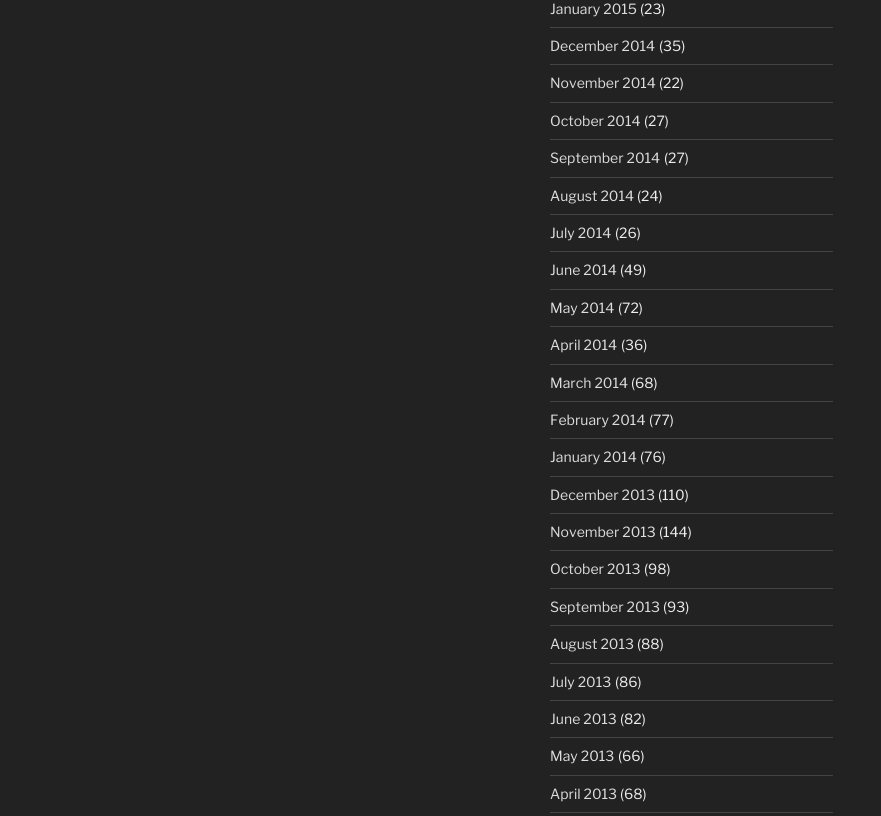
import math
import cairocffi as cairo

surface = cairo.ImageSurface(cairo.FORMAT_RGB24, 881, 816)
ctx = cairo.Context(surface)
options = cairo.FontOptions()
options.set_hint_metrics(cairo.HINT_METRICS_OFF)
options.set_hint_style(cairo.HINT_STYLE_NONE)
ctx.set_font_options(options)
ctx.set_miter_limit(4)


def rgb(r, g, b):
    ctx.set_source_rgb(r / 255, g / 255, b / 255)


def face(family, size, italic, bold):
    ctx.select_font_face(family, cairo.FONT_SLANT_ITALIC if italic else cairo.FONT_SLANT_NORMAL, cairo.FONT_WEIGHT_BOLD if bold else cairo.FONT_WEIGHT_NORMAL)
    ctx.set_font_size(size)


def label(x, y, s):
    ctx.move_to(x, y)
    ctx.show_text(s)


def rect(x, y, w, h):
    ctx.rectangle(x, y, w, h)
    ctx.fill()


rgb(34, 34, 34)
ctx.paint()
rgb(68, 68, 68)
rect(550, 27, 283, 1)
face('Libre Franklin Thin', 14, 0, 0)
rgb(221, 221, 221)
label(550, 14, 'January 2015')
rgb(238, 238, 238)
label(640, 14, '(23)')
rgb(68, 68, 68)
rect(550, 64, 283, 1)
rgb(221, 221, 221)
label(550, 51, 'December 2014')
rgb(238, 238, 238)
label(659, 51, '(35)')
rgb(68, 68, 68)
rect(550, 102, 283, 1)
rgb(221, 221, 221)
label(550, 88, 'November 2014')
rgb(238, 238, 238)
label(659, 88, '(22)')
rgb(68, 68, 68)
rect(550, 139, 283, 1)
rgb(221, 221, 221)
label(550, 126, 'October 2014')
rgb(238, 238, 238)
label(644, 126, '(27)')
rgb(68, 68, 68)
rect(550, 177, 283, 1)
rgb(221, 221, 221)
label(550, 163, 'September 2014')
rgb(238, 238, 238)
label(664, 163, '(27)')
rgb(68, 68, 68)
rect(550, 214, 283, 1)
rgb(221, 221, 221)
label(550, 201, 'August 2014')
rgb(238, 238, 238)
label(637, 201, '(24)')
rgb(68, 68, 68)
rect(550, 251, 283, 1)
rgb(221, 221, 221)
label(550, 238, 'July 2014')
rgb(238, 238, 238)
label(615, 238, '(26)')
rgb(68, 68, 68)
rect(550, 289, 283, 1)
rgb(221, 221, 221)
label(550, 275, 'June 2014')
rgb(238, 238, 238)
label(620, 275, '(49)')
rgb(68, 68, 68)
rect(550, 326, 283, 1)
rgb(221, 221, 221)
label(550, 313, 'May 2014')
rgb(238, 238, 238)
label(618, 313, '(72)')
rgb(68, 68, 68)
rect(550, 364, 283, 1)
rgb(221, 221, 221)
label(550, 350, 'April 2014')
rgb(238, 238, 238)
label(621, 350, '(36)')
rgb(68, 68, 68)
rect(550, 401, 283, 1)
rgb(221, 221, 221)
label(550, 388, 'March 2014')
rgb(238, 238, 238)
label(631, 388, '(68)')
rgb(68, 68, 68)
rect(550, 438, 283, 1)
rgb(221, 221, 221)
label(550, 425, 'February 2014')
rgb(238, 238, 238)
label(649, 425, '(77)')
rgb(68, 68, 68)
rect(550, 476, 283, 1)
rgb(221, 221, 221)
label(550, 462, 'January 2014')
rgb(238, 238, 238)
label(640, 462, '(76)')
rgb(68, 68, 68)
rect(550, 513, 283, 1)
rgb(221, 221, 221)
label(550, 500, 'December 2013')
rgb(238, 238, 238)
label(658, 500, '(110)')
rgb(68, 68, 68)
rect(550, 550, 283, 1)
rgb(221, 221, 221)
label(550, 537, 'November 2013')
rgb(238, 238, 238)
label(659, 537, '(144)')
rgb(68, 68, 68)
rect(550, 588, 283, 1)
rgb(221, 221, 221)
label(550, 574, 'October 2013')
rgb(238, 238, 238)
label(644, 574, '(98)')
rgb(68, 68, 68)
rect(550, 625, 283, 1)
rgb(221, 221, 221)
label(550, 612, 'September 2013')
rgb(238, 238, 238)
label(663, 612, '(93)')
rgb(68, 68, 68)
rect(550, 663, 283, 1)
rgb(221, 221, 221)
label(550, 649, 'August 2013')
rgb(238, 238, 238)
label(637, 649, '(88)')
rgb(68, 68, 68)
rect(550, 700, 283, 1)
rgb(221, 221, 221)
label(550, 687, 'July 2013')
rgb(238, 238, 238)
label(615, 687, '(86)')
rgb(68, 68, 68)
rect(550, 737, 283, 1)
rgb(221, 221, 221)
label(550, 724, 'June 2013')
rgb(238, 238, 238)
label(620, 724, '(82)')
rgb(68, 68, 68)
rect(550, 775, 283, 1)
rgb(221, 221, 221)
label(550, 761, 'May 2013')
rgb(238, 238, 238)
label(618, 761, '(66)')
rgb(68, 68, 68)
rect(550, 812, 283, 1)
rgb(221, 221, 221)
label(550, 799, 'April 2013')
rgb(238, 238, 238)
label(620, 799, '(68)')
surface.write_to_png('render.png')
